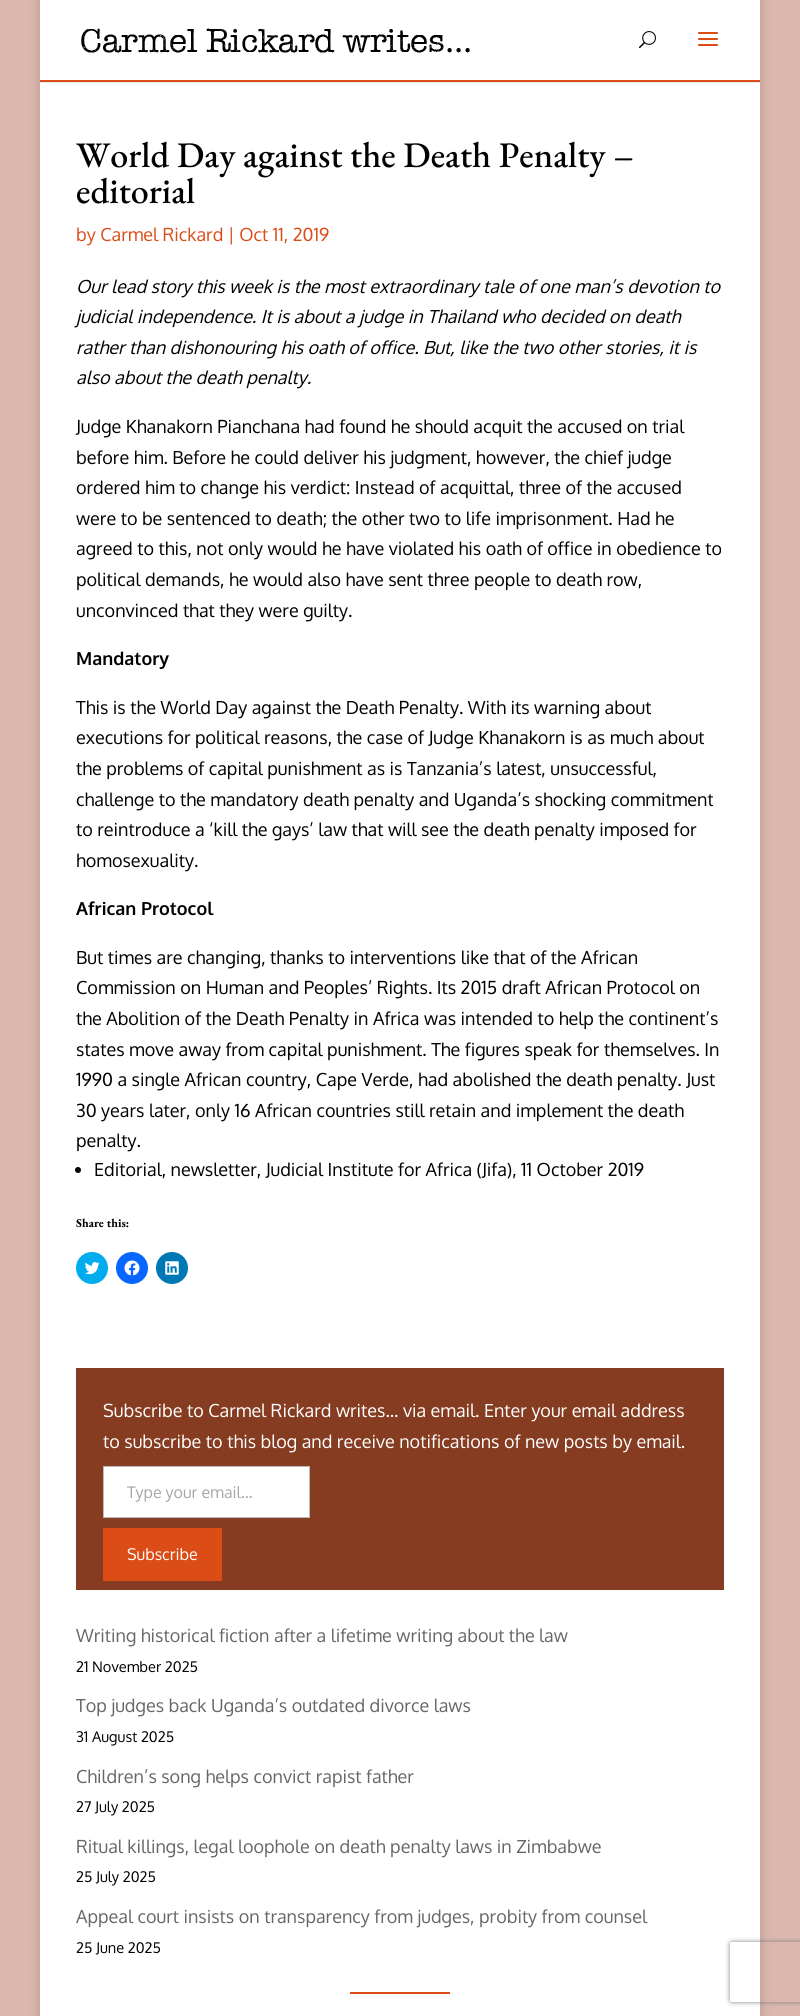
import math
import cairocffi as cairo

surface = cairo.ImageSurface(cairo.FORMAT_RGB24, 800, 2016)
ctx = cairo.Context(surface)
options = cairo.FontOptions()
options.set_hint_metrics(cairo.HINT_METRICS_OFF)
options.set_hint_style(cairo.HINT_STYLE_NONE)
ctx.set_font_options(options)
ctx.set_miter_limit(4)


def rgb(r, g, b):
    ctx.set_source_rgb(r / 255, g / 255, b / 255)


def face(family, size, italic, bold):
    ctx.select_font_face(family, cairo.FONT_SLANT_ITALIC if italic else cairo.FONT_SLANT_NORMAL, cairo.FONT_WEIGHT_BOLD if bold else cairo.FONT_WEIGHT_NORMAL)
    ctx.set_font_size(size)


def label(x, y, s):
    ctx.move_to(x, y)
    ctx.show_text(s)


def rect(x, y, w, h):
    ctx.rectangle(x, y, w, h)
    ctx.fill()


def rrect(x, y, w, h, r):
    ctx.new_sub_path()
    for i, (u, v) in enumerate([(x + w - r, y + h - r), (x + r, y + h - r), (x + r, y + r), (x + w - r, y + r)]):
        ctx.arc(u, v, r, i * math.pi / 2, (i + 1) * math.pi / 2)
    ctx.close_path()


def soft_shadow(x, y, w, h, r, blur, alpha):
    ctx.push_group_with_content(cairo.CONTENT_ALPHA)
    ctx.set_operator(cairo.OPERATOR_SOURCE)
    for i in range(15, -16, -2):
        e = blur * i / 6
        if min(w, h) + 2 * e > 0:
            ctx.set_source_rgba(0, 0, 0, alpha * math.erfc((i - 1) / 8.5) / 2)
            rrect(x - e, y - e, w + 2 * e, h + 2 * e, max(0, min(r + e + blur * .6, min(w, h) / 2 + e)))
            ctx.fill()
    ctx.mask(ctx.pop_group())


def image(path, x, y, w, h):
    ctx.save()
    ctx.set_source_surface(cairo.ImageSurface.create_from_png(path), x, y)
    ctx.rectangle(x, y, w, h)
    ctx.fill()
    ctx.restore()


rgb(219, 183, 173)
ctx.paint()
rgb(0, 0, 0)
soft_shadow(40, 0, 720, 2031, 0, 5, 0.2)
rgb(230, 230, 230)
rect(40, 82, 720, 1)
rgb(255, 255, 255)
rect(40, 0, 720, 80)
rgb(220, 76, 22)
rect(40, 80, 720, 2)
image('image0.png', 81, 28, 389, 25)
image('image1.png', 639, 31, 17, 18)
image('image2.png', 698, 32, 20, 14)
rgb(255, 255, 255)
rect(40, 83, 720, 1933)
face('EB Garamond Medium', 36, 0, 0)
rgb(0, 0, 0)
label(76, 167, 'World Day against the Death Penalty –')
label(76, 203, 'editorial')
face('Oxygen', 18, 0, 0)
rgb(220, 76, 22)
label(76, 241, 'by Carmel Rickard | Oct 11, 2019')
face('Oxygen', 18, 1, 0)
rgb(0, 0, 0)
label(76, 293, 'Our lead story this week is the most extraordinary tale of one man’s devotion to')
label(76, 323, 'judicial independence. It is about a judge in Thailand who decided on death')
label(76, 354, 'rather than dishonouring his oath of office. But, like the two other stories, it is')
label(76, 384, 'also about the death penalty.')
face('Oxygen', 18, 0, 0)
label(76, 433, 'Judge Khanakorn Pianchana had found he should acquit the accused on trial')
label(76, 464, 'before him. Before he could deliver his judgment, however, the chief judge')
label(76, 494, 'ordered him to change his verdict: Instead of acquittal, three of the accused')
label(76, 525, 'were to be sentenced to death; the other two to life imprisonment. Had he')
label(76, 555, 'agreed to this, not only would he have violated his oath of office in obedience to')
label(76, 586, 'political demands, he would also have sent three people to death row,')
label(76, 617, 'unconvinced that they were guilty.')
face('Oxygen', 18, 0, 1)
label(76, 665, 'Mandatory')
face('Oxygen', 18, 0, 0)
label(76, 714, 'This is the World Day against the Death Penalty. With its warning about')
label(76, 744, 'executions for political reasons, the case of Judge Khanakorn is as much about')
label(76, 775, 'the problems of capital punishment as is Tanzania’s latest, unsuccessful,')
label(76, 806, 'challenge to the mandatory death penalty and Uganda’s shocking commitment')
label(76, 836, 'to reintroduce a ‘kill the gays’ law that will see the death penalty imposed for')
label(76, 867, 'homosexuality.')
face('Oxygen', 18, 0, 1)
label(76, 915, 'African Protocol')
face('Oxygen', 18, 0, 0)
label(76, 964, 'But times are changing, thanks to interventions like that of the African')
label(76, 994, 'Commission on Human and Peoples’ Rights. Its 2015 draft African Protocol on')
label(76, 1025, 'the Abolition of the Death Penalty in Africa was intended to help the continent’s')
label(76, 1056, 'states move away from capital punishment. The figures speak for themselves. In')
label(76, 1086, '1990 a single African country, Cape Verde, had abolished the death penalty. Just')
label(76, 1117, '30 years later, only 16 African countries still retain and implement the death')
label(76, 1147, 'penalty.')
ctx.new_path()
ctx.arc(78, 1170, 3, 0, 2 * math.pi)
ctx.fill()
label(94, 1176, 'Editorial, newsletter, Judicial Institute for Africa (Jifa), 11 October 2019')
face('EB Garamond', 12, 0, 1)
label(76, 1227, 'Share this:')
rgb(0, 172, 238)
ctx.new_path()
ctx.arc(92, 1268, 16, 0, 2 * math.pi)
ctx.fill()
image('image3.png', 84, 1262, 16, 13)
rgb(8, 102, 255)
ctx.arc(132, 1268, 16, 0, 2 * math.pi)
ctx.fill()
image('image4.png', 124, 1260, 16, 16)
rgb(0, 119, 181)
ctx.arc(172, 1268, 16, 0, 2 * math.pi)
ctx.fill()
image('image5.png', 165, 1261, 14, 14)
rgb(134, 60, 33)
rect(76, 1368, 648, 222)
face('Oxygen', 18, 0, 0)
rgb(255, 255, 255)
label(103, 1417, 'Subscribe to Carmel Rickard writes... via email. Enter your email address')
label(103, 1448, 'to subscribe to this blog and receive notifications of new posts by email.')
ctx.rectangle(103.5, 1466.5, 206, 51)
ctx.fill_preserve()
rgb(187, 187, 187)
ctx.set_line_width(1)
ctx.stroke()
face('Oxygen', 16, 0, 0)
rgb(167, 167, 167)
label(127, 1498, 'Type your email…')
rgb(220, 76, 22)
rect(103, 1528, 119, 53)
rgb(255, 255, 255)
label(127, 1560, 'Subscribe')
face('Oxygen', 18, 0, 0)
rgb(102, 102, 102)
label(76, 1642, 'Writing historical fiction after a lifetime writing about the law')
face('Oxygen', 14.6, 0, 0)
rgb(0, 0, 0)
label(76, 1672, '21 November 2025')
face('Oxygen', 18, 0, 0)
rgb(102, 102, 102)
label(76, 1712, 'Top judges back Uganda’s outdated divorce laws')
face('Oxygen', 14.6, 0, 0)
rgb(0, 0, 0)
label(76, 1742, '31 August 2025')
face('Oxygen', 18, 0, 0)
rgb(102, 102, 102)
label(76, 1783, 'Children’s song helps convict rapist father')
face('Oxygen', 14.6, 0, 0)
rgb(0, 0, 0)
label(76, 1812, '27 July 2025')
face('Oxygen', 18, 0, 0)
rgb(102, 102, 102)
label(76, 1853, 'Ritual killings, legal loophole on death penalty laws in Zimbabwe')
face('Oxygen', 14.6, 0, 0)
rgb(0, 0, 0)
label(76, 1882, '25 July 2025')
face('Oxygen', 18, 0, 0)
rgb(102, 102, 102)
label(76, 1923, 'Appeal court insists on transparency from judges, probity from counsel')
face('Oxygen', 14.6, 0, 0)
rgb(0, 0, 0)
label(76, 1953, '25 June 2025')
rgb(220, 76, 22)
rect(350, 1992, 100, 2)
ctx.save()
ctx.set_fill_rule(cairo.FILL_RULE_EVEN_ODD)
ctx.new_path()
ctx.move_to(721, 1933)
ctx.line_to(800, 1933)
ctx.line_to(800, 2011)
ctx.line_to(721, 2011)
ctx.close_path()
ctx.move_to(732, 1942)
ctx.line_to(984, 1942)
ctx.curve_to(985, 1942, 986, 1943, 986, 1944)
ctx.line_to(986, 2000)
ctx.curve_to(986, 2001, 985, 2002, 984, 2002)
ctx.line_to(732, 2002)
ctx.curve_to(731, 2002, 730, 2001, 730, 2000)
ctx.line_to(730, 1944)
ctx.curve_to(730, 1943, 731, 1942, 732, 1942)
ctx.close_path()
ctx.clip()
rgb(128, 128, 128)
soft_shadow(730, 1942, 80, 60, 2, 2.5, 1)
ctx.restore()
surface.write_to_png('render.png')
